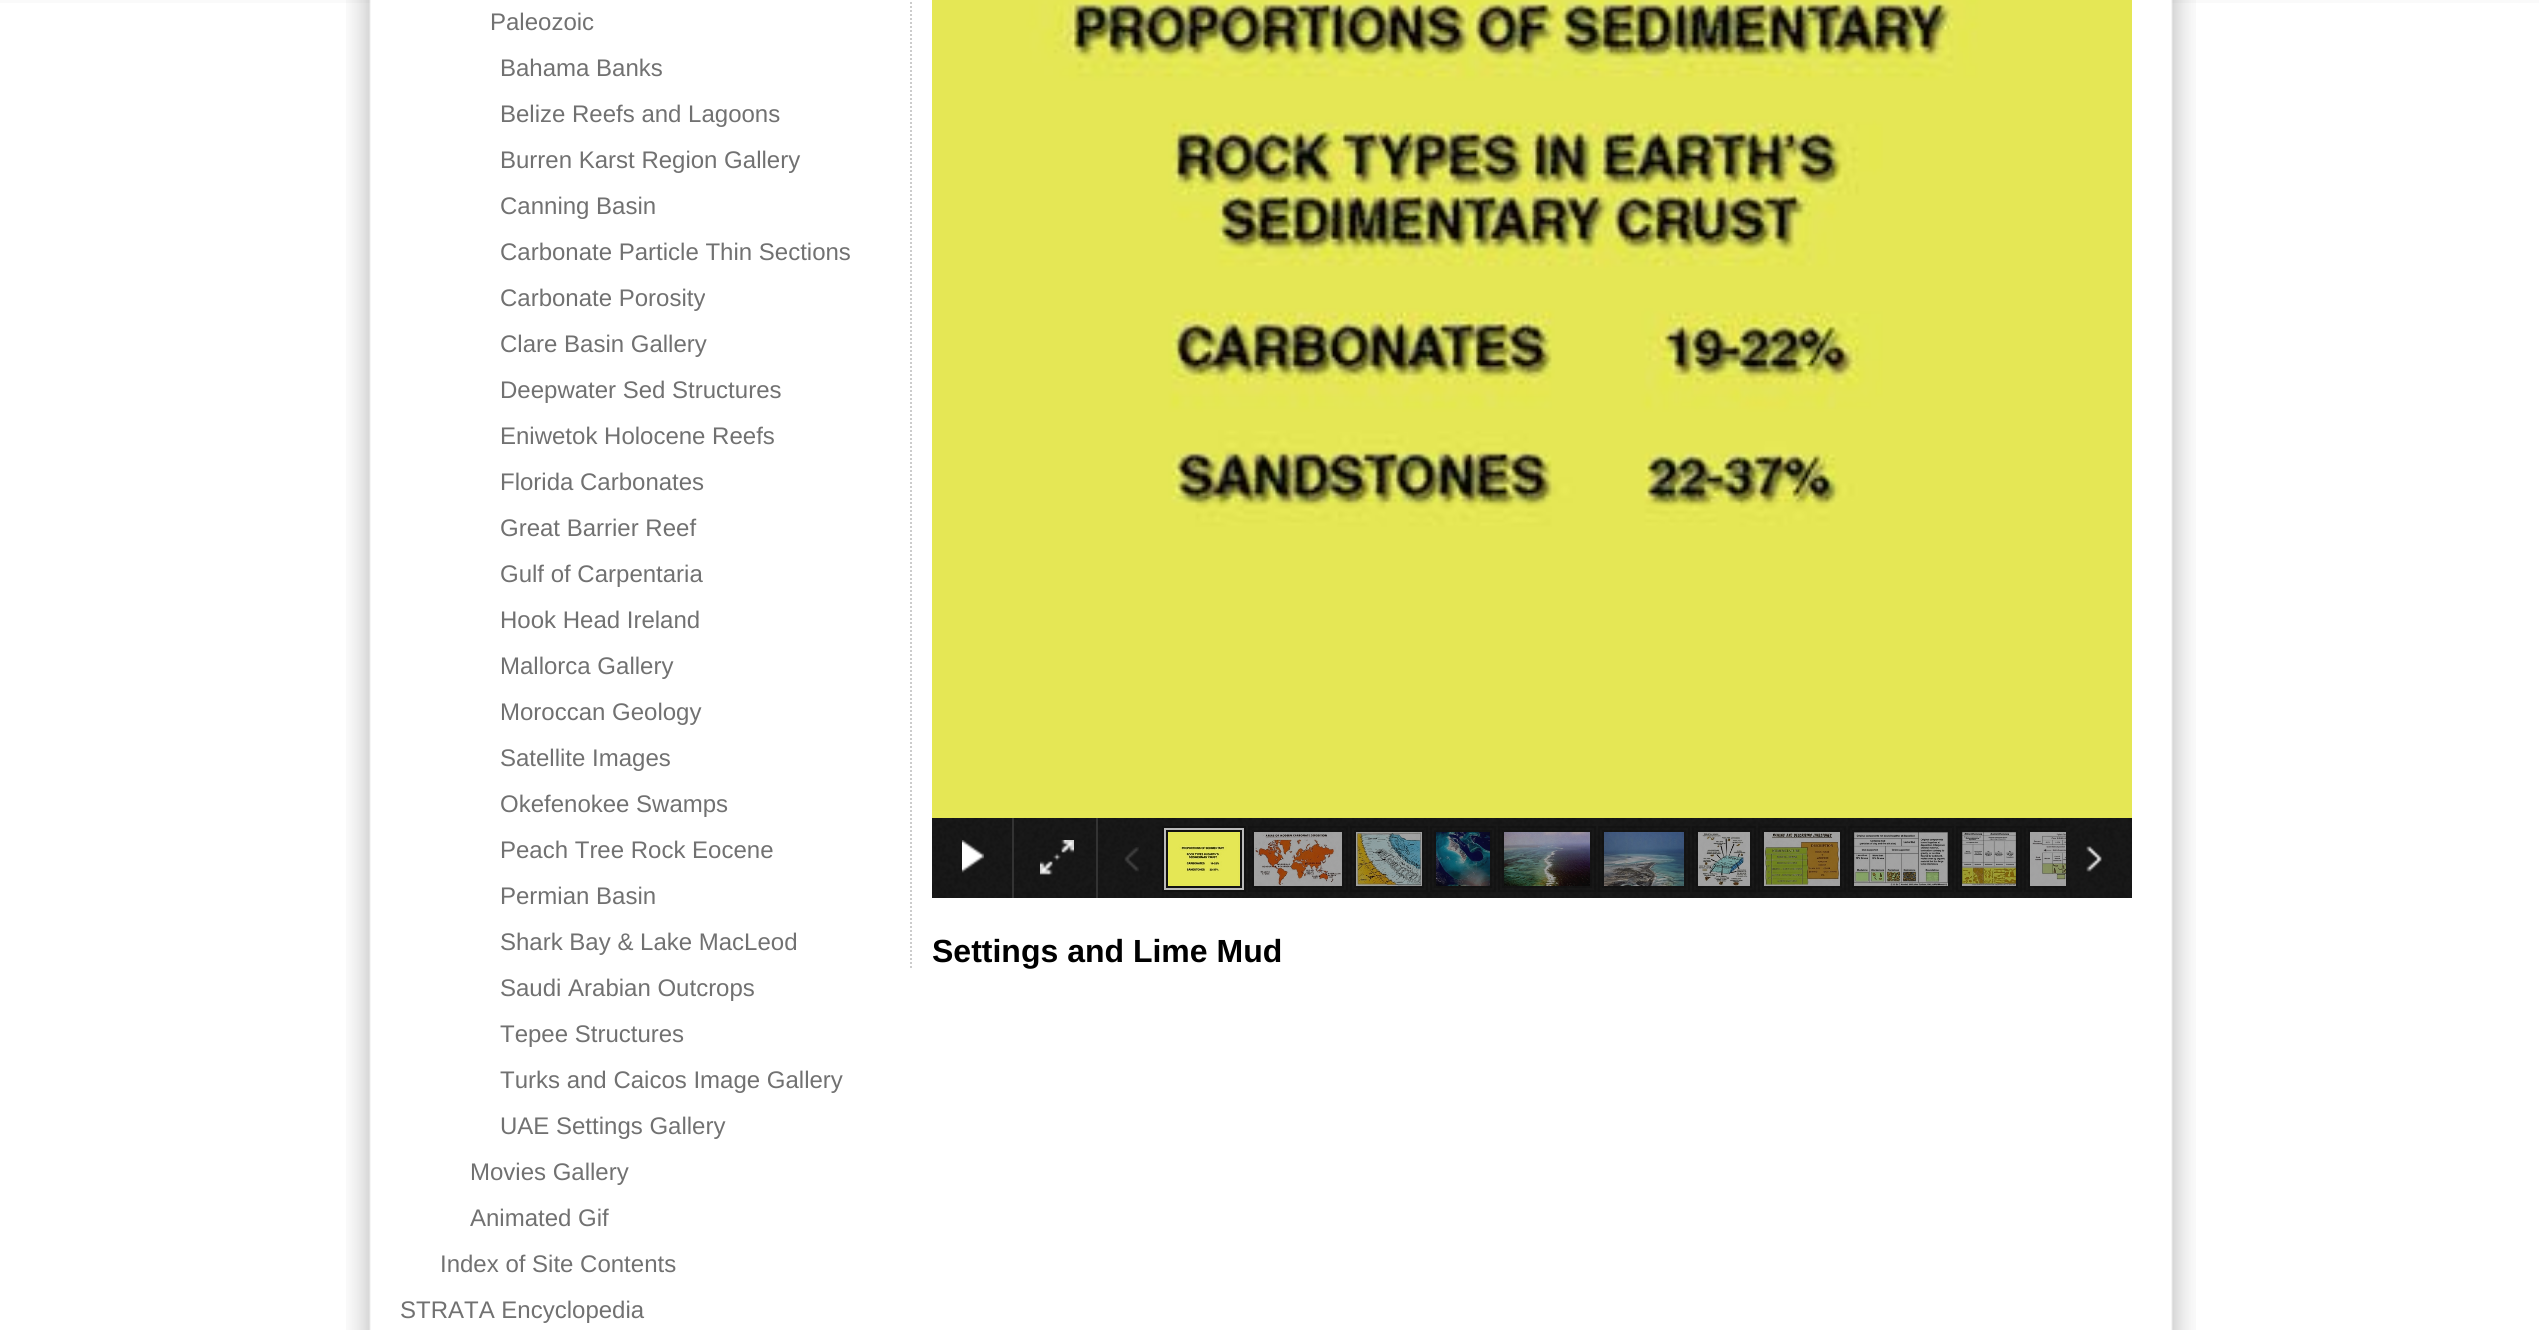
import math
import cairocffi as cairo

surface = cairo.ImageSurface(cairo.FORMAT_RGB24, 2539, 1330)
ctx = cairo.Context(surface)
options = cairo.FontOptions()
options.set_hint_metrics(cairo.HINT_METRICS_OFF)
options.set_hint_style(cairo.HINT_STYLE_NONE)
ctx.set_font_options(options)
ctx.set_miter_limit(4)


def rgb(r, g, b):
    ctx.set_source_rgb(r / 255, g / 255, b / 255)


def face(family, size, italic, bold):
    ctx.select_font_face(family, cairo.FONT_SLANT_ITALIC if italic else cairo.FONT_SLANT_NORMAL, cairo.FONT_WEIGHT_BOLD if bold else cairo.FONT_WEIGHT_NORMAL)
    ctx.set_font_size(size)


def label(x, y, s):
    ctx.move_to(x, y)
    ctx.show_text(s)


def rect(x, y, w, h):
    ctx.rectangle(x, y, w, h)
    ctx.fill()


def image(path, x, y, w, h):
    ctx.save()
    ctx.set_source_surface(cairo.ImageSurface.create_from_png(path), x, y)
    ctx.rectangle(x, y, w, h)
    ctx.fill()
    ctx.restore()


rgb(255, 255, 255)
ctx.paint()
rgb(250, 250, 250)
rect(0, 0, 2539, 3)
image('image0.png', 346, 0, 1850, 1330)
face('Liberation Sans', 24, 0, 0)
rgb(113, 113, 113)
label(490, 30, 'Paleozoic')
label(500, 76, 'Bahama Banks')
label(500, 122, 'Belize Reefs and Lagoons')
label(500, 168, 'Burren Karst Region Gallery')
label(500, 214, 'Canning Basin')
label(500, 260, 'Carbonate Particle Thin Sections')
label(500, 306, 'Carbonate Porosity')
label(500, 352, 'Clare Basin Gallery')
label(500, 398, 'Deepwater Sed Structures')
label(500, 444, 'Eniwetok Holocene Reefs')
label(500, 490, 'Florida Carbonates')
label(500, 536, 'Great Barrier Reef')
label(500, 582, 'Gulf of Carpentaria')
label(500, 628, 'Hook Head Ireland')
label(500, 674, 'Mallorca Gallery')
label(500, 720, 'Moroccan Geology')
label(500, 766, 'Satellite Images')
label(500, 812, 'Okefenokee Swamps')
label(500, 858, 'Peach Tree Rock Eocene')
label(500, 904, 'Permian Basin')
label(500, 950, 'Shark Bay & Lake MacLeod')
label(500, 996, 'Saudi Arabian Outcrops')
label(500, 1042, 'Tepee Structures')
label(500, 1088, 'Turks and Caicos Image Gallery')
label(500, 1134, 'UAE Settings Gallery')
label(470, 1180, 'Movies Gallery')
label(470, 1226, 'Animated Gif')
label(440, 1272, 'Index of Site Contents')
label(400, 1318, 'STRATA Encyclopedia')
ctx.new_path()
ctx.move_to(911, -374)
ctx.line_to(911, 970)
rgb(204, 204, 204)
ctx.set_dash([2, 2])
ctx.stroke()
image('image1.png', 932, 0, 1200, 818)
rgb(20, 20, 20)
rect(932, 818, 1200, 80)
image('image2.png', 932, 818, 1200, 80)
image('image3.png', 962, 840, 22, 33)
rgb(51, 51, 51)
rect(1012, 818, 2, 80)
image('image4.png', 1040, 840, 34, 35)
rect(1096, 818, 2, 80)
ctx.set_source_rgba(1, 1, 1, 0.7)
ctx.rectangle(1163, 827, 82, 64)
ctx.fill_preserve()
rgb(17, 17, 17)
ctx.set_dash([])
ctx.stroke()
ctx.rectangle(1167, 831, 74, 56)
ctx.stroke()
image('image5.png', 1168, 832, 72, 54)
ctx.rectangle(1249, 827, 98, 64)
ctx.set_source_rgba(0.067, 0.067, 0.067, 0.6)
ctx.stroke()
ctx.rectangle(1253, 831, 90, 56)
ctx.stroke()
image('image6.png', 1254, 832, 88, 54)
ctx.rectangle(1351, 827, 76, 64)
ctx.stroke()
ctx.rectangle(1355, 831, 68, 56)
ctx.stroke()
image('image7.png', 1356, 832, 66, 54)
ctx.rectangle(1431, 827, 64, 64)
ctx.stroke()
ctx.rectangle(1435, 831, 56, 56)
ctx.stroke()
image('image8.png', 1436, 832, 54, 54)
ctx.rectangle(1499, 827, 96, 64)
ctx.stroke()
ctx.rectangle(1503, 831, 88, 56)
ctx.stroke()
image('image9.png', 1504, 832, 86, 54)
ctx.rectangle(1599, 827, 90, 64)
ctx.stroke()
ctx.rectangle(1603, 831, 82, 56)
ctx.stroke()
image('image10.png', 1604, 832, 80, 54)
ctx.rectangle(1693, 827, 62, 64)
ctx.stroke()
ctx.rectangle(1697, 831, 54, 56)
ctx.stroke()
image('image11.png', 1698, 832, 52, 54)
ctx.rectangle(1759, 827, 86, 64)
ctx.stroke()
ctx.rectangle(1763, 831, 78, 56)
ctx.stroke()
image('image12.png', 1764, 832, 76, 54)
ctx.rectangle(1849, 827, 104, 64)
ctx.stroke()
ctx.rectangle(1853, 831, 96, 56)
ctx.stroke()
image('image13.png', 1854, 832, 94, 54)
ctx.rectangle(1957, 827, 64, 64)
ctx.stroke()
ctx.rectangle(1961, 831, 56, 56)
ctx.stroke()
image('image14.png', 1962, 832, 54, 54)
ctx.save()
ctx.rectangle(1160, 826, 906, 66)
ctx.clip()
ctx.rectangle(2025, 827, 106, 64)
ctx.stroke()
ctx.rectangle(2029, 831, 98, 56)
ctx.stroke()
ctx.restore()
image('image15.png', 2030, 832, 36, 54)
image('image16.png', 1124, 847, 15, 25)
image('image17.png', 2086, 846, 16, 26)
face('Liberation Sans', 32, 0, 1)
rgb(0, 0, 0)
label(932, 962, 'Settings and Lime Mud')
surface.write_to_png('render.png')
